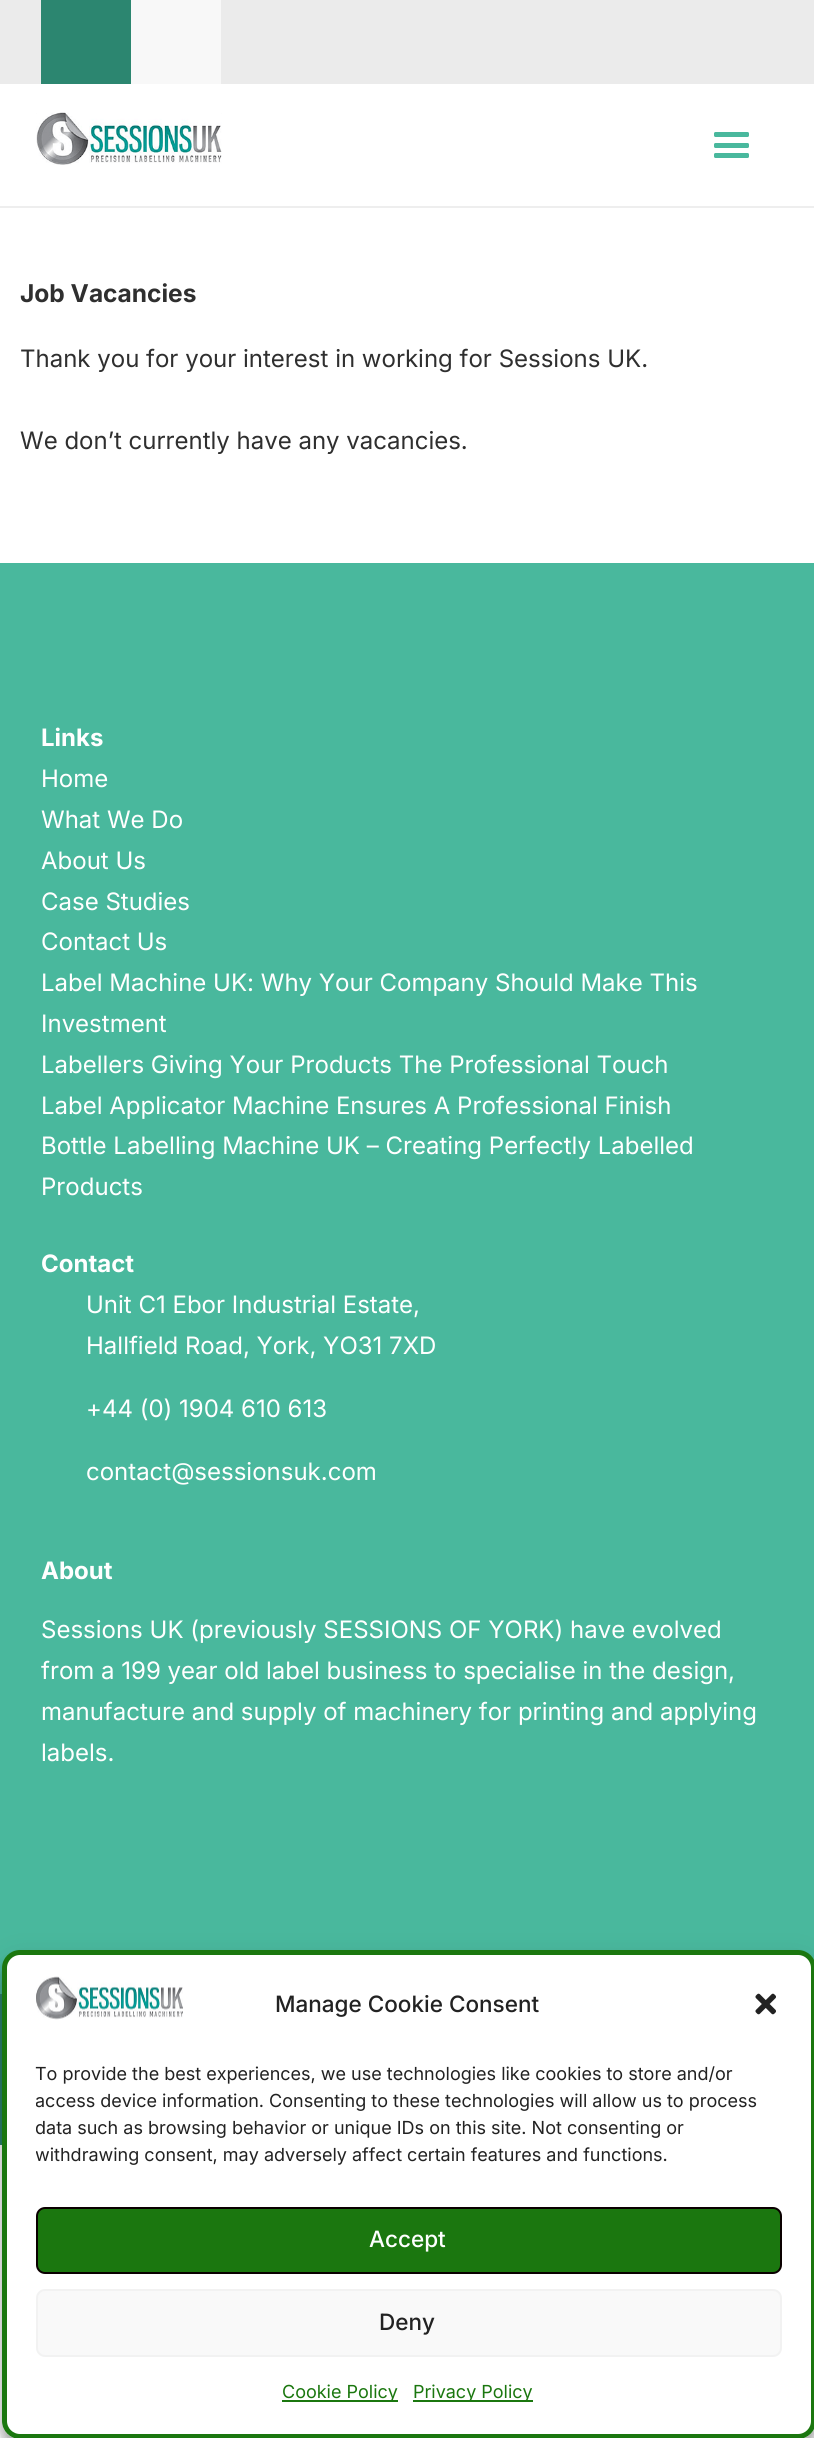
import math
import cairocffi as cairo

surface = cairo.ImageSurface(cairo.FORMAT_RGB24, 814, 2438)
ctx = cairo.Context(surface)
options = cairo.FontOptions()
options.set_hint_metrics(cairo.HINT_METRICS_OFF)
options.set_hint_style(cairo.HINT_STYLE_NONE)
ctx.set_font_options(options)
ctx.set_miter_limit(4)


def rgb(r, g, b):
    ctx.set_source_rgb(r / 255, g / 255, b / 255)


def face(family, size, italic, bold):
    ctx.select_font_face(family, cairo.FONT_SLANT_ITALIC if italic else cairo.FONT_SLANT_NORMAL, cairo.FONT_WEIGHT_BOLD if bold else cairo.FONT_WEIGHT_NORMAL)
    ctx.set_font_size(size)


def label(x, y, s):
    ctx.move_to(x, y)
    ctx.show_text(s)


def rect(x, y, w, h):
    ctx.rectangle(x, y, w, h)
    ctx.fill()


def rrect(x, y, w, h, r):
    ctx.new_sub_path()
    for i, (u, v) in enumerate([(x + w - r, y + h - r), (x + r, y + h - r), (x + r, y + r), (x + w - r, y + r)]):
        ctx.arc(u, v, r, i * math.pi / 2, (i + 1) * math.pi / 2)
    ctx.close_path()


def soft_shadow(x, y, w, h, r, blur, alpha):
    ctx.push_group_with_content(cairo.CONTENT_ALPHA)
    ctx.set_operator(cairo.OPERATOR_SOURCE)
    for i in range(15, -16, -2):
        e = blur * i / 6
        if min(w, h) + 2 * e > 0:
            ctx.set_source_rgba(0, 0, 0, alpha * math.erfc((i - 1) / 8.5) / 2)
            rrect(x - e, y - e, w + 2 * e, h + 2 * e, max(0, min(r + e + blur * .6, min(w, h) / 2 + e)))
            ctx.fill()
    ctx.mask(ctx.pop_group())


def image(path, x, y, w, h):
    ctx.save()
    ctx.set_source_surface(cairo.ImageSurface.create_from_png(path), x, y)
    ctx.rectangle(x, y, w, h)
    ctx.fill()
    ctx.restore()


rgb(255, 255, 255)
ctx.paint()
rgb(235, 235, 235)
rect(0, 0, 814, 84)
rgb(44, 134, 112)
rect(41, 0, 90, 84)
rgb(248, 248, 248)
rect(131, 0, 90, 84)
rgb(238, 238, 238)
rect(0, 206, 814, 2)
image('image0.png', 36, 112, 186, 53)
rgb(73, 184, 157)
rrect(714, 132, 35, 5, 1.5)
ctx.fill()
rrect(714, 143, 35, 5, 1.5)
ctx.fill()
rrect(714, 153, 35, 5, 1.5)
ctx.fill()
face('Inter', 24.5, 0, 1)
rgb(47, 47, 47)
label(20, 302, 'Job Vacancies')
face('Inter', 24, 0, 0)
label(20, 367, 'Thank you for your interest in working for Sessions UK.')
label(20, 449, 'We don’t currently have any vacancies.')
rgb(73, 184, 157)
rect(0, 563, 814, 1431)
face('Inter', 24, 0, 1)
rgb(255, 255, 255)
label(41, 746, 'Links')
face('Inter', 24, 0, 0)
label(41, 787, 'Home')
label(41, 828, 'What We Do')
label(41, 869, 'About Us')
label(41, 910, 'Case Studies')
label(41, 950, 'Contact Us')
label(41, 991, 'Label Machine UK: Why Your Company Should Make This')
label(41, 1032, 'Investment')
label(41, 1073, 'Labellers Giving Your Products The Professional Touch')
label(41, 1114, 'Label Applicator Machine Ensures A Professional Finish')
label(41, 1154, 'Bottle Labelling Machine UK – Creating Perfectly Labelled')
label(41, 1195, 'Products')
face('Inter', 24, 0, 1)
label(41, 1272, 'Contact')
face('Inter', 24, 0, 0)
label(86, 1313, 'Unit C1 Ebor Industrial Estate,')
label(86, 1354, 'Hallfield Road, York, YO31 7XD')
label(86, 1417, '+44 (0) 1904 610 613')
label(86, 1480, 'contact@sessionsuk.com')
face('Inter', 24, 0, 1)
label(41, 1579, 'About')
face('Inter', 24, 0, 0)
label(41, 1638, 'Sessions UK (previously SESSIONS OF YORK) have evolved')
label(41, 1679, 'from a 199 year old label business to specialise in the design,')
label(41, 1720, 'manufacture and supply of machinery for printing and applying')
label(41, 1761, 'labels.')
rgb(44, 134, 112)
rect(0, 1994, 2, 151)
ctx.save()
ctx.set_fill_rule(cairo.FILL_RULE_EVEN_ODD)
ctx.new_path()
ctx.move_to(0, 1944)
ctx.line_to(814, 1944)
ctx.line_to(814, 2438)
ctx.line_to(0, 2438)
ctx.close_path()
ctx.move_to(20, 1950)
ctx.line_to(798, 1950)
ctx.curve_to(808, 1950, 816, 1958, 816, 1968)
ctx.line_to(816, 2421)
ctx.curve_to(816, 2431, 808, 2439, 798, 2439)
ctx.line_to(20, 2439)
ctx.curve_to(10, 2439, 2, 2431, 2, 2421)
ctx.line_to(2, 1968)
ctx.curve_to(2, 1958, 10, 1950, 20, 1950)
ctx.close_path()
ctx.clip()
rgb(0, 0, 0)
soft_shadow(2, 1959, 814, 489, 18, 4.5, 0.23)
ctx.restore()
ctx.save()
ctx.set_fill_rule(cairo.FILL_RULE_EVEN_ODD)
ctx.new_path()
ctx.move_to(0, 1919)
ctx.line_to(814, 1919)
ctx.line_to(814, 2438)
ctx.line_to(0, 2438)
ctx.close_path()
ctx.move_to(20, 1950)
ctx.line_to(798, 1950)
ctx.curve_to(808, 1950, 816, 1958, 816, 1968)
ctx.line_to(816, 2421)
ctx.curve_to(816, 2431, 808, 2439, 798, 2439)
ctx.line_to(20, 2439)
ctx.curve_to(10, 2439, 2, 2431, 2, 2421)
ctx.line_to(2, 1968)
ctx.curve_to(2, 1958, 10, 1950, 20, 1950)
ctx.close_path()
ctx.clip()
rgb(0, 0, 0)
soft_shadow(2, 1965, 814, 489, 18, 15, 0.19)
ctx.restore()
rgb(255, 255, 255)
rrect(4.5, 1952.5, 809, 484, 15.5)
ctx.fill_preserve()
rgb(27, 119, 15)
ctx.set_line_width(5)
ctx.stroke()
image('image1.png', 36, 1976, 147, 44)
face('Inter Medium', 22.5, 0, 0)
rgb(34, 34, 34)
label(275, 2012, 'Manage Cookie Consent')
image('image2.png', 755, 1993, 21, 22)
face('Inter', 18, 0, 0)
label(35, 2080, 'To provide the best experiences, we use technologies like cookies to store and/or')
ctx.save()
ctx.rectangle(36, 2061, 746, 116)
ctx.clip()
label(35, 2107, 'access device information. Consenting to these technologies will allow us to process')
label(35, 2134, 'data such as browsing behavior or unique IDs on this site. Not consenting or')
label(35, 2161, 'withdrawing consent, may adversely affect certain features and functions.')
ctx.restore()
rgb(27, 119, 15)
rrect(37, 2208, 744, 65, 8)
ctx.fill_preserve()
rgb(10, 0, 0)
ctx.set_line_width(2)
ctx.stroke()
face('Inter Medium', 22.5, 0, 0)
rgb(255, 255, 255)
label(369, 2247, 'Accept')
rgb(249, 249, 249)
rrect(37, 2290, 744, 66, 8)
ctx.fill_preserve()
rgb(242, 242, 242)
ctx.stroke()
rgb(34, 34, 34)
label(379, 2330, 'Deny')
rgb(27, 119, 15)
rect(282, 2400, 116, 2)
face('Inter', 18, 0, 0)
label(282, 2398, 'Cookie Policy')
rect(413, 2400, 120, 2)
label(413, 2398, 'Privacy Policy')
surface.write_to_png('render.png')
